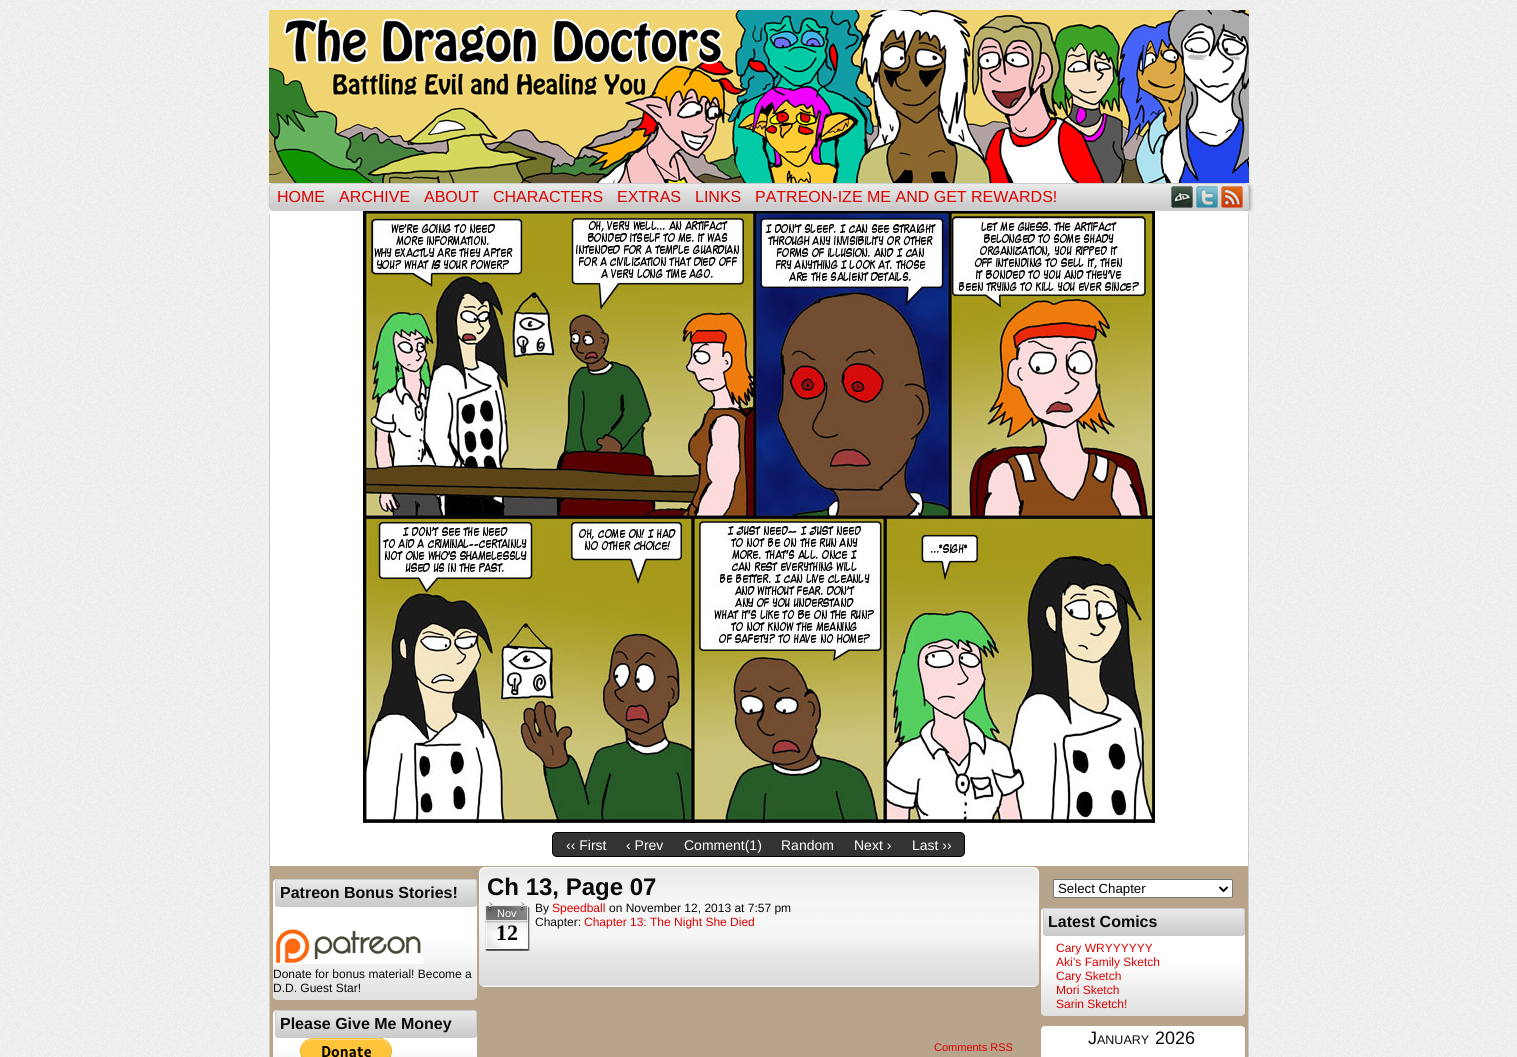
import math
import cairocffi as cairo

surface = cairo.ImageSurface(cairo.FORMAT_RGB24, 1517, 1057)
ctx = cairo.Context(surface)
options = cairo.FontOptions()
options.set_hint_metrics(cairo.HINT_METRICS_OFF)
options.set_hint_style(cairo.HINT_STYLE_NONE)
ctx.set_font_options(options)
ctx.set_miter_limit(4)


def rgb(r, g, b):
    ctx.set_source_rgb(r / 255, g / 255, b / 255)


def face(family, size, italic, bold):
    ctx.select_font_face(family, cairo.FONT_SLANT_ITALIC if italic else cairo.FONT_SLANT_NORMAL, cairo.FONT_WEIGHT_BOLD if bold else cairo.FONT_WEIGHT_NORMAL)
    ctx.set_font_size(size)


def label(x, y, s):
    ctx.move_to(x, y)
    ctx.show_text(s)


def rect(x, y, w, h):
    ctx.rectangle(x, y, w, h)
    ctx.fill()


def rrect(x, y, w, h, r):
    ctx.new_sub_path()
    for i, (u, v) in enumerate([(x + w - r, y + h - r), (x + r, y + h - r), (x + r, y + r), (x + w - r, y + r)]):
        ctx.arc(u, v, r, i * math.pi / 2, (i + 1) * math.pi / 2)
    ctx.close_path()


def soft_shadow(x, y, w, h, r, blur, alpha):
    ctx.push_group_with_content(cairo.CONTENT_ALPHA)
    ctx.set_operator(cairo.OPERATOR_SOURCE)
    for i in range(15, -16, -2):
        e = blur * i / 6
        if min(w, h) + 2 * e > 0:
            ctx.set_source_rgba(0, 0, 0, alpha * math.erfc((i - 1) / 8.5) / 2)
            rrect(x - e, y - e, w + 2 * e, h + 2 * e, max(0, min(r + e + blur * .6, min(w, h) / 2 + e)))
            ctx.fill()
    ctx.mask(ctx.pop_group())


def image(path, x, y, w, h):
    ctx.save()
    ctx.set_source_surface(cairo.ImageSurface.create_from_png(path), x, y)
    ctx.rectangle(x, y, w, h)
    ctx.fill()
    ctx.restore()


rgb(255, 255, 255)
ctx.paint()
image('image0.png', 0, 0, 1517, 1057)
rgb(255, 255, 255)
rect(269, 183, 980, 33)
rgb(0, 0, 0)
soft_shadow(271, 185, 980, 27, 4, 2, 0.2)
rgb(20, 20, 20)
soft_shadow(270, 184, 980, 27, 4, 1.5, 0.2)
image('image1.png', 269, 10, 980, 173)
ctx.save()
rrect(269, 183, 980, 27, 4)
ctx.clip()
gradient = cairo.LinearGradient(759, 184, 759, 209)
gradient.add_color_stop_rgba(0, 0.918, 0.918, 0.918, 1)
gradient.add_color_stop_rgba(1, 0.792, 0.792, 0.792, 1)
ctx.set_source(gradient)
rect(269, 184, 980, 25)
ctx.restore()
rrect(269.5, 183.5, 979, 26, 3.5)
rgb(204, 204, 204)
ctx.set_line_width(1)
ctx.stroke()
face('Liberation Sans', 16, 0, 0)
rgb(221, 0, 0)
label(277, 202, 'HOME')
label(339, 202, 'ARCHIVE')
label(424, 202, 'ABOUT')
label(493, 202, 'CHARACTERS')
label(617, 202, 'EXTRAS')
label(695, 202, 'LINKS')
label(755, 202, 'PATREON-IZE ME AND GET REWARDS!')
image('image2.png', 1171, 186, 22, 22)
image('image3.png', 1196, 186, 22, 22)
image('image4.png', 1221, 186, 22, 22)
rrect(269.5, 210.5, 979, 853, 5.5)
rgb(204, 204, 204)
ctx.stroke()
rgb(255, 255, 255)
rect(270, 211, 978, 655)
image('image5.png', 363, 211, 792, 612)
rgb(51, 51, 51)
rrect(552.5, 832.5, 412, 24, 4.5)
ctx.fill_preserve()
rgb(0, 0, 0)
ctx.stroke()
face('Liberation Sans', 14, 0, 0)
rgb(255, 255, 255)
label(566, 850, '‹‹ First')
label(626, 850, '‹ Prev')
label(684, 850, 'Comment(1)')
label(781, 850, 'Random')
label(854, 850, 'Next ›')
label(912, 850, 'Last ››')
rgb(183, 164, 139)
rect(270, 866, 978, 191)
gradient = cairo.LinearGradient(375, 879, 375, 1000)
gradient.add_color_stop_rgba(0, 1, 1, 1, 1)
gradient.add_color_stop_rgba(0.49, 1, 1, 1, 1)
gradient.add_color_stop_rgba(1, 0.875, 0.875, 0.875, 1)
ctx.set_source(gradient)
rrect(273, 879, 204, 121, 4)
ctx.fill()
ctx.save()
rrect(275, 879, 202, 28, 3)
ctx.clip()
gradient = cairo.LinearGradient(376, 880, 376, 906)
gradient.add_color_stop_rgba(0, 0.918, 0.918, 0.918, 1)
gradient.add_color_stop_rgba(1, 0.792, 0.792, 0.792, 1)
ctx.set_source(gradient)
rect(275, 880, 202, 26)
ctx.restore()
rrect(275.5, 879.5, 201, 27, 2.5)
rgb(204, 204, 204)
ctx.stroke()
face('Liberation Sans', 16, 0, 1)
rgb(10, 10, 10)
label(280, 898, 'Patreon Bonus Stories!')
image('image6.png', 273, 926, 150, 38)
face('Liberation Sans', 12, 0, 0)
label(273, 978, 'Donate for bonus material! Become a')
label(273, 992, 'D.D. Guest Star!')
gradient = cairo.LinearGradient(375, 1010, 375, 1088)
gradient.add_color_stop_rgba(0, 1, 1, 1, 1)
gradient.add_color_stop_rgba(0.49, 1, 1, 1, 1)
gradient.add_color_stop_rgba(1, 0.875, 0.875, 0.875, 1)
ctx.set_source(gradient)
rrect(273, 1010, 204, 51, 4)
ctx.fill()
ctx.save()
rrect(275, 1010, 202, 28, 3)
ctx.clip()
gradient = cairo.LinearGradient(376, 1011, 376, 1037)
gradient.add_color_stop_rgba(0, 0.918, 0.918, 0.918, 1)
gradient.add_color_stop_rgba(1, 0.792, 0.792, 0.792, 1)
ctx.set_source(gradient)
rect(275, 1011, 202, 26)
ctx.restore()
rrect(275.5, 1010.5, 201, 27, 2.5)
rgb(204, 204, 204)
ctx.stroke()
face('Liberation Sans', 16, 0, 1)
rgb(10, 10, 10)
label(280, 1029, 'Please Give Me Money')
image('image7.png', 300, 1038, 92, 19)
rgb(255, 255, 255)
rrect(479, 867, 560, 120, 6)
ctx.fill()
image('image8.png', 479, 905, 560, 81)
gradient = cairo.LinearGradient(759, 868, 759, 956)
gradient.add_color_stop_rgba(0, 0.867, 0.867, 0.867, 0.65)
gradient.add_color_stop_rgba(0.8, 1, 1, 1, 0.39)
gradient.add_color_stop_rgba(1, 1, 1, 1, 0)
ctx.set_source(gradient)
rrect(480, 868, 558, 88, 6)
ctx.fill()
face('Liberation Sans', 24, 0, 1)
rgb(10, 10, 10)
label(487, 895, 'Ch 13, Page 07')
image('image9.png', 485, 902, 45, 49)
face('Liberation Sans', 11, 0, 0)
rgb(255, 255, 255)
label(497, 917, 'Nov')
face('Liberation Serif', 22, 0, 1)
rgb(0, 0, 0)
label(496, 940, '12')
face('Liberation Sans', 12, 0, 0)
rgb(10, 10, 10)
label(535, 912, 'By')
rgb(221, 0, 0)
label(552, 912, 'Speedball')
rgb(10, 10, 10)
label(609, 912, 'on November 12, 2013 at 7:57 pm')
label(535, 926, 'Chapter:')
rgb(221, 0, 0)
label(584, 926, 'Chapter 13: The Night She Died')
face('Liberation Sans', 11, 0, 0)
label(934, 1051, 'Comments RSS')
rgb(255, 255, 255)
rrect(1053.5, 879.5, 179, 18, 1.5)
ctx.fill_preserve()
rgb(118, 118, 118)
ctx.stroke()
ctx.new_path()
ctx.move_to(1219.5, 887)
ctx.line_to(1223.5, 891)
ctx.line_to(1227.5, 887)
rgb(0, 0, 0)
ctx.set_line_width(2)
ctx.stroke()
face('Liberation Sans', 13.25, 0, 0)
label(1058, 893, 'Select Chapter')
gradient = cairo.LinearGradient(1143, 908, 1143, 1016)
gradient.add_color_stop_rgba(0, 1, 1, 1, 1)
gradient.add_color_stop_rgba(0.49, 1, 1, 1, 1)
gradient.add_color_stop_rgba(1, 0.875, 0.875, 0.875, 1)
ctx.set_source(gradient)
rrect(1041, 908, 204, 108, 4)
ctx.fill()
ctx.save()
rrect(1043, 908, 202, 28, 3)
ctx.clip()
gradient = cairo.LinearGradient(1144, 909, 1144, 935)
gradient.add_color_stop_rgba(0, 0.918, 0.918, 0.918, 1)
gradient.add_color_stop_rgba(1, 0.792, 0.792, 0.792, 1)
ctx.set_source(gradient)
rect(1043, 909, 202, 26)
ctx.restore()
rrect(1043.5, 908.5, 201, 27, 2.5)
rgb(204, 204, 204)
ctx.set_line_width(1)
ctx.stroke()
face('Liberation Sans', 16, 0, 1)
rgb(10, 10, 10)
label(1048, 927, 'Latest Comics')
face('Liberation Sans', 12, 0, 0)
rgb(221, 0, 0)
label(1056, 952, 'Cary WRYYYYYY')
label(1056, 966, 'Aki’s Family Sketch')
label(1056, 980, 'Cary Sketch')
label(1056, 994, 'Mori Sketch')
label(1056, 1008, 'Sarin Sketch!')
gradient = cairo.LinearGradient(1143, 1026, 1143, 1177)
gradient.add_color_stop_rgba(0, 1, 1, 1, 1)
gradient.add_color_stop_rgba(0.49, 1, 1, 1, 1)
gradient.add_color_stop_rgba(1, 0.875, 0.875, 0.875, 1)
ctx.set_source(gradient)
rrect(1041, 1026, 204, 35, 4)
ctx.fill()
face('Liberation Sans', 18, 0, 0)
rgb(10, 10, 10)
label(1088, 1044, 'J')
face('Liberation Sans', 12.5, 0, 0)
label(1097, 1044, 'ANUARY')
face('Liberation Sans', 18, 0, 0)
label(1155, 1044, '2026')
surface.write_to_png('render.png')
